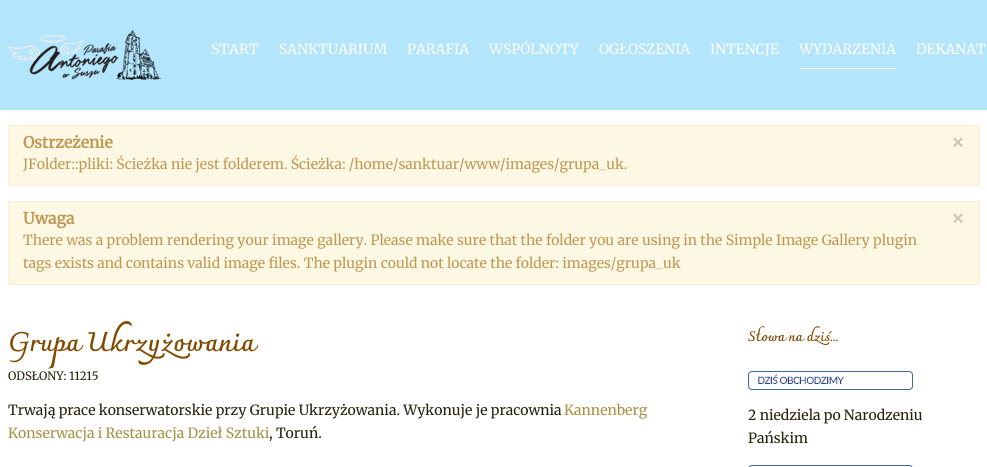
import math
import cairocffi as cairo

surface = cairo.ImageSurface(cairo.FORMAT_RGB24, 987, 467)
ctx = cairo.Context(surface)
options = cairo.FontOptions()
options.set_hint_metrics(cairo.HINT_METRICS_OFF)
options.set_hint_style(cairo.HINT_STYLE_NONE)
ctx.set_font_options(options)
ctx.set_miter_limit(4)


def rgb(r, g, b):
    ctx.set_source_rgb(r / 255, g / 255, b / 255)


def face(family, size, italic, bold):
    ctx.select_font_face(family, cairo.FONT_SLANT_ITALIC if italic else cairo.FONT_SLANT_NORMAL, cairo.FONT_WEIGHT_BOLD if bold else cairo.FONT_WEIGHT_NORMAL)
    ctx.set_font_size(size)


def label(x, y, s):
    ctx.move_to(x, y)
    ctx.show_text(s)


def rect(x, y, w, h):
    ctx.rectangle(x, y, w, h)
    ctx.fill()


def image(path, x, y, w, h):
    ctx.save()
    ctx.set_source_surface(cairo.ImageSurface.create_from_png(path), x, y)
    ctx.rectangle(x, y, w, h)
    ctx.fill()
    ctx.restore()


rgb(255, 255, 255)
ctx.paint()
rgb(179, 229, 252)
rect(0, 0, 987, 110)
image('image0.png', 8, 30, 153, 50)
face('Merriweather Light', 14, 0, 0)
rgb(255, 255, 255)
label(211, 54, 'START')
label(279, 54, 'SANKTUARIUM')
label(407, 54, 'PARAFIA')
label(489, 54, 'WSPÓLNOTY')
label(599, 54, 'OGŁOSZENIA')
label(710, 54, 'INTENCJE')
label(799, 54, 'WYDARZENIA')
rect(799, 68, 97, 1)
label(916, 54, 'DEKANAT')
rgb(252, 248, 227)
ctx.rectangle(8.5, 125.5, 971, 60)
ctx.fill_preserve()
rgb(251, 238, 213)
ctx.set_line_width(1)
ctx.stroke()
face('Merriweather', 15.75, 0, 1)
rgb(192, 152, 83)
label(23, 148, 'Ostrzeżenie')
face('Merriweather', 20, 0, 1)
rgb(202, 198, 182)
label(951, 149, '×')
face('Merriweather Light', 14, 0, 0)
rgb(192, 152, 83)
label(23, 169, 'JFolder::pliki: Ścieżka nie jest folderem. Ścieżka: /home/sanktuar/www/images/grupa_uk.')
rgb(252, 248, 227)
ctx.rectangle(8.5, 201.5, 971, 83)
ctx.fill_preserve()
rgb(251, 238, 213)
ctx.stroke()
face('Merriweather', 15.75, 0, 1)
rgb(192, 152, 83)
label(23, 224, 'Uwaga')
face('Merriweather', 20, 0, 1)
rgb(202, 198, 182)
label(951, 225, '×')
face('Merriweather Light', 14, 0, 0)
rgb(192, 152, 83)
label(23, 245, 'There was a problem rendering your image gallery. Please make sure that the folder you are using in the Simple Image Gallery plugin')
label(23, 268, 'tags exists and contains valid image files. The plugin could not locate the folder: images/grupa_uk')
face('Charmonman', 27, 0, 1)
rgb(130, 74, 0)
label(8, 351, 'Grupa Ukrzyżowania')
face('Merriweather Light', 11.5, 0, 0)
rgb(38, 33, 12)
label(8, 380, 'ODSŁONY: 11215')
face('Merriweather Light', 14, 0, 0)
label(8, 415, 'Trwają prace konserwatorskie przy Grupie Ukrzyżowania. Wykonuje je pracownia')
rgb(164, 146, 71)
label(564, 415, 'Kannenberg')
label(8, 438, 'Konserwacja i Restauracja Dzieł Sztuki')
rgb(38, 33, 12)
label(269, 438, ', Toruń.')
face('Charmonman', 14, 0, 1)
rgb(130, 74, 0)
label(748, 341, 'Słowa na dziś...')
image('image1.png', 748, 371, 165, 19)
face('Merriweather Light', 14, 0, 0)
rgb(38, 33, 12)
label(748, 420, '2 niedziela po Narodzeniu')
label(748, 443, 'Pańskim')
image('image2.png', 748, 465, 165, 2)
surface.write_to_png('render.png')
